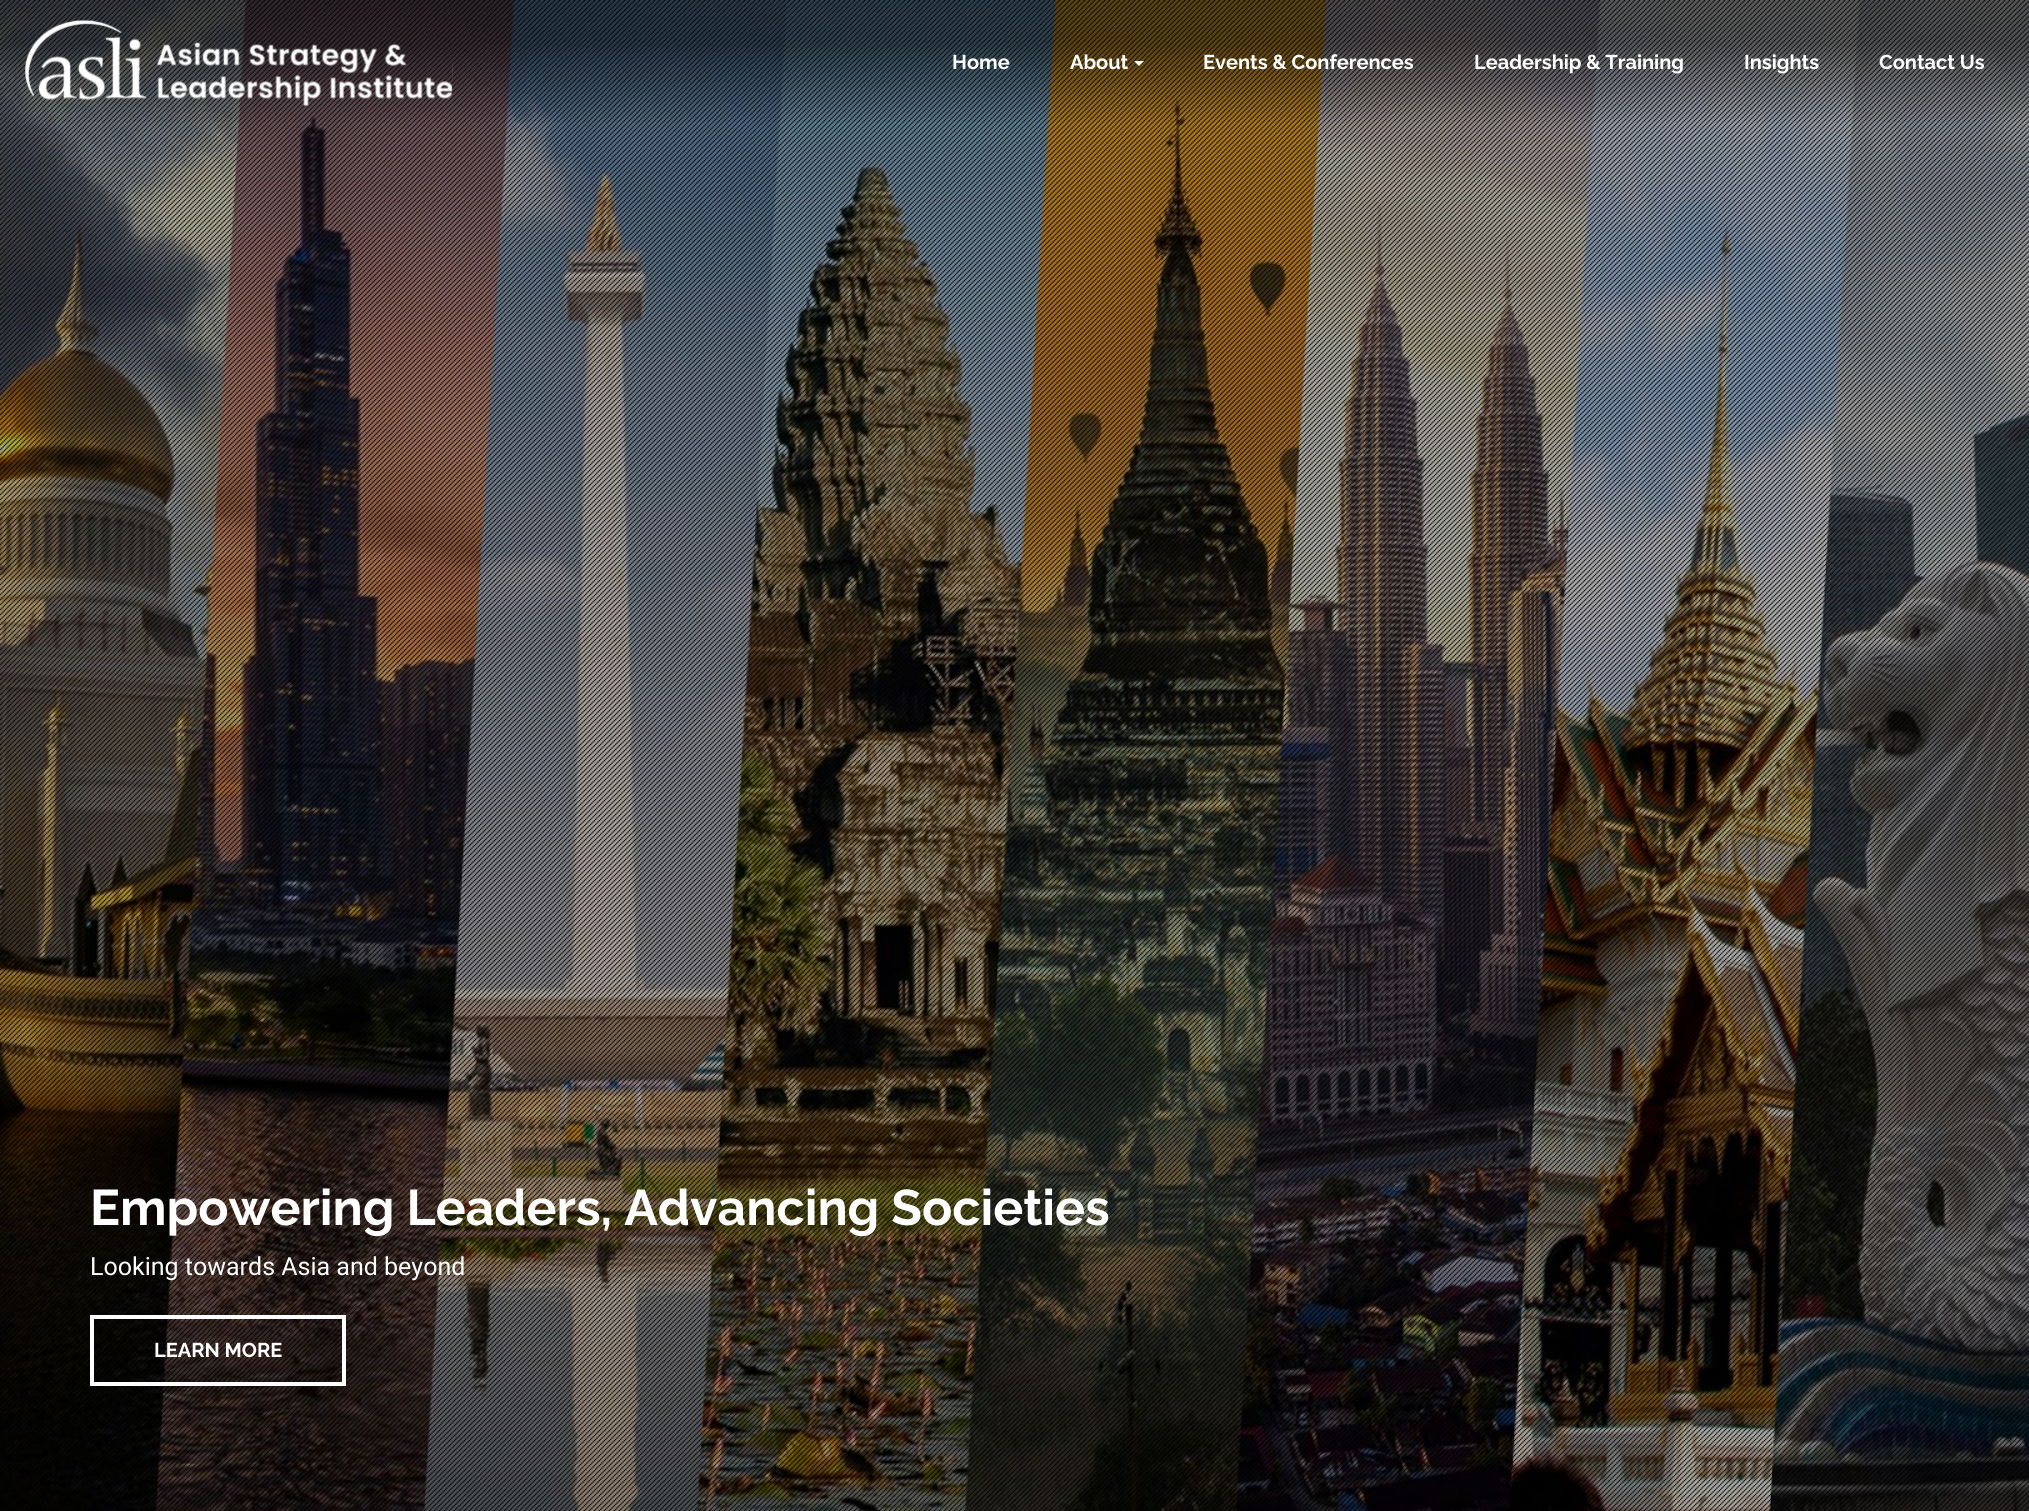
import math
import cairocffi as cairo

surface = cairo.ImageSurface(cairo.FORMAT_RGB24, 2029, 1511)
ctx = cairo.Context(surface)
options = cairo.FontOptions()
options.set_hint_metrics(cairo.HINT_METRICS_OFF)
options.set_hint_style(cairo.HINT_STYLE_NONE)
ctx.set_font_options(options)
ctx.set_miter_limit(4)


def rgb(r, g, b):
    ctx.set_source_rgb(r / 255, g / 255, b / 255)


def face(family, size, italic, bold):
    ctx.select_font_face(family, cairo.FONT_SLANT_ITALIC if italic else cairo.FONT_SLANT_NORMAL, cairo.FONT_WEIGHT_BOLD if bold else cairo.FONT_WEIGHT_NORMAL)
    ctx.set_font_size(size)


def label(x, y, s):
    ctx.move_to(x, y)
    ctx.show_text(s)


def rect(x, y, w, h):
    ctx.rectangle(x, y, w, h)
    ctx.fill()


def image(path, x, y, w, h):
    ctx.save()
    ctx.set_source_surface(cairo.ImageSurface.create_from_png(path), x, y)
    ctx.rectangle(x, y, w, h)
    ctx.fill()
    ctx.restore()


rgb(255, 255, 255)
ctx.paint()
image('image1.png', 0, 0, 2029, 1511)
image('image2.png', 0, 0, 2029, 1511)
gradient = cairo.LinearGradient(1015, 126, 1015, 0)
gradient.add_color_stop_rgba(0, 0, 0, 0, 0)
gradient.add_color_stop_rgba(0.65, 0, 0, 0, 0.45)
ctx.set_source(gradient)
rect(0, 0, 2029, 122)
image('image0.png', 25, 20, 428, 86)
face('Raleway', 20, 0, 1)
rgb(255, 255, 255)
label(952, 69, 'Home')
label(1070, 69, 'About')
ctx.new_path()
ctx.move_to(1134, 61)
ctx.line_to(1144, 61)
ctx.line_to(1139, 66)
ctx.close_path()
ctx.fill()
label(1203, 69, 'Events & Conferences')
label(1474, 69, 'Leadership & Training')
label(1744, 69, 'Insights')
label(1879, 69, 'Contact Us')
face('Raleway', 50, 0, 1)
label(90, 1225, 'Empowering Leaders, Advancing Societies')
face('Roboto', 25, 0, 0)
label(90, 1275, 'Looking towards Asia and beyond')
ctx.rectangle(92, 1317, 252, 67)
ctx.set_line_width(4)
ctx.stroke()
face('Raleway', 20, 0, 1)
label(154, 1357, 'LEARN MORE')
surface.write_to_png('render.png')
